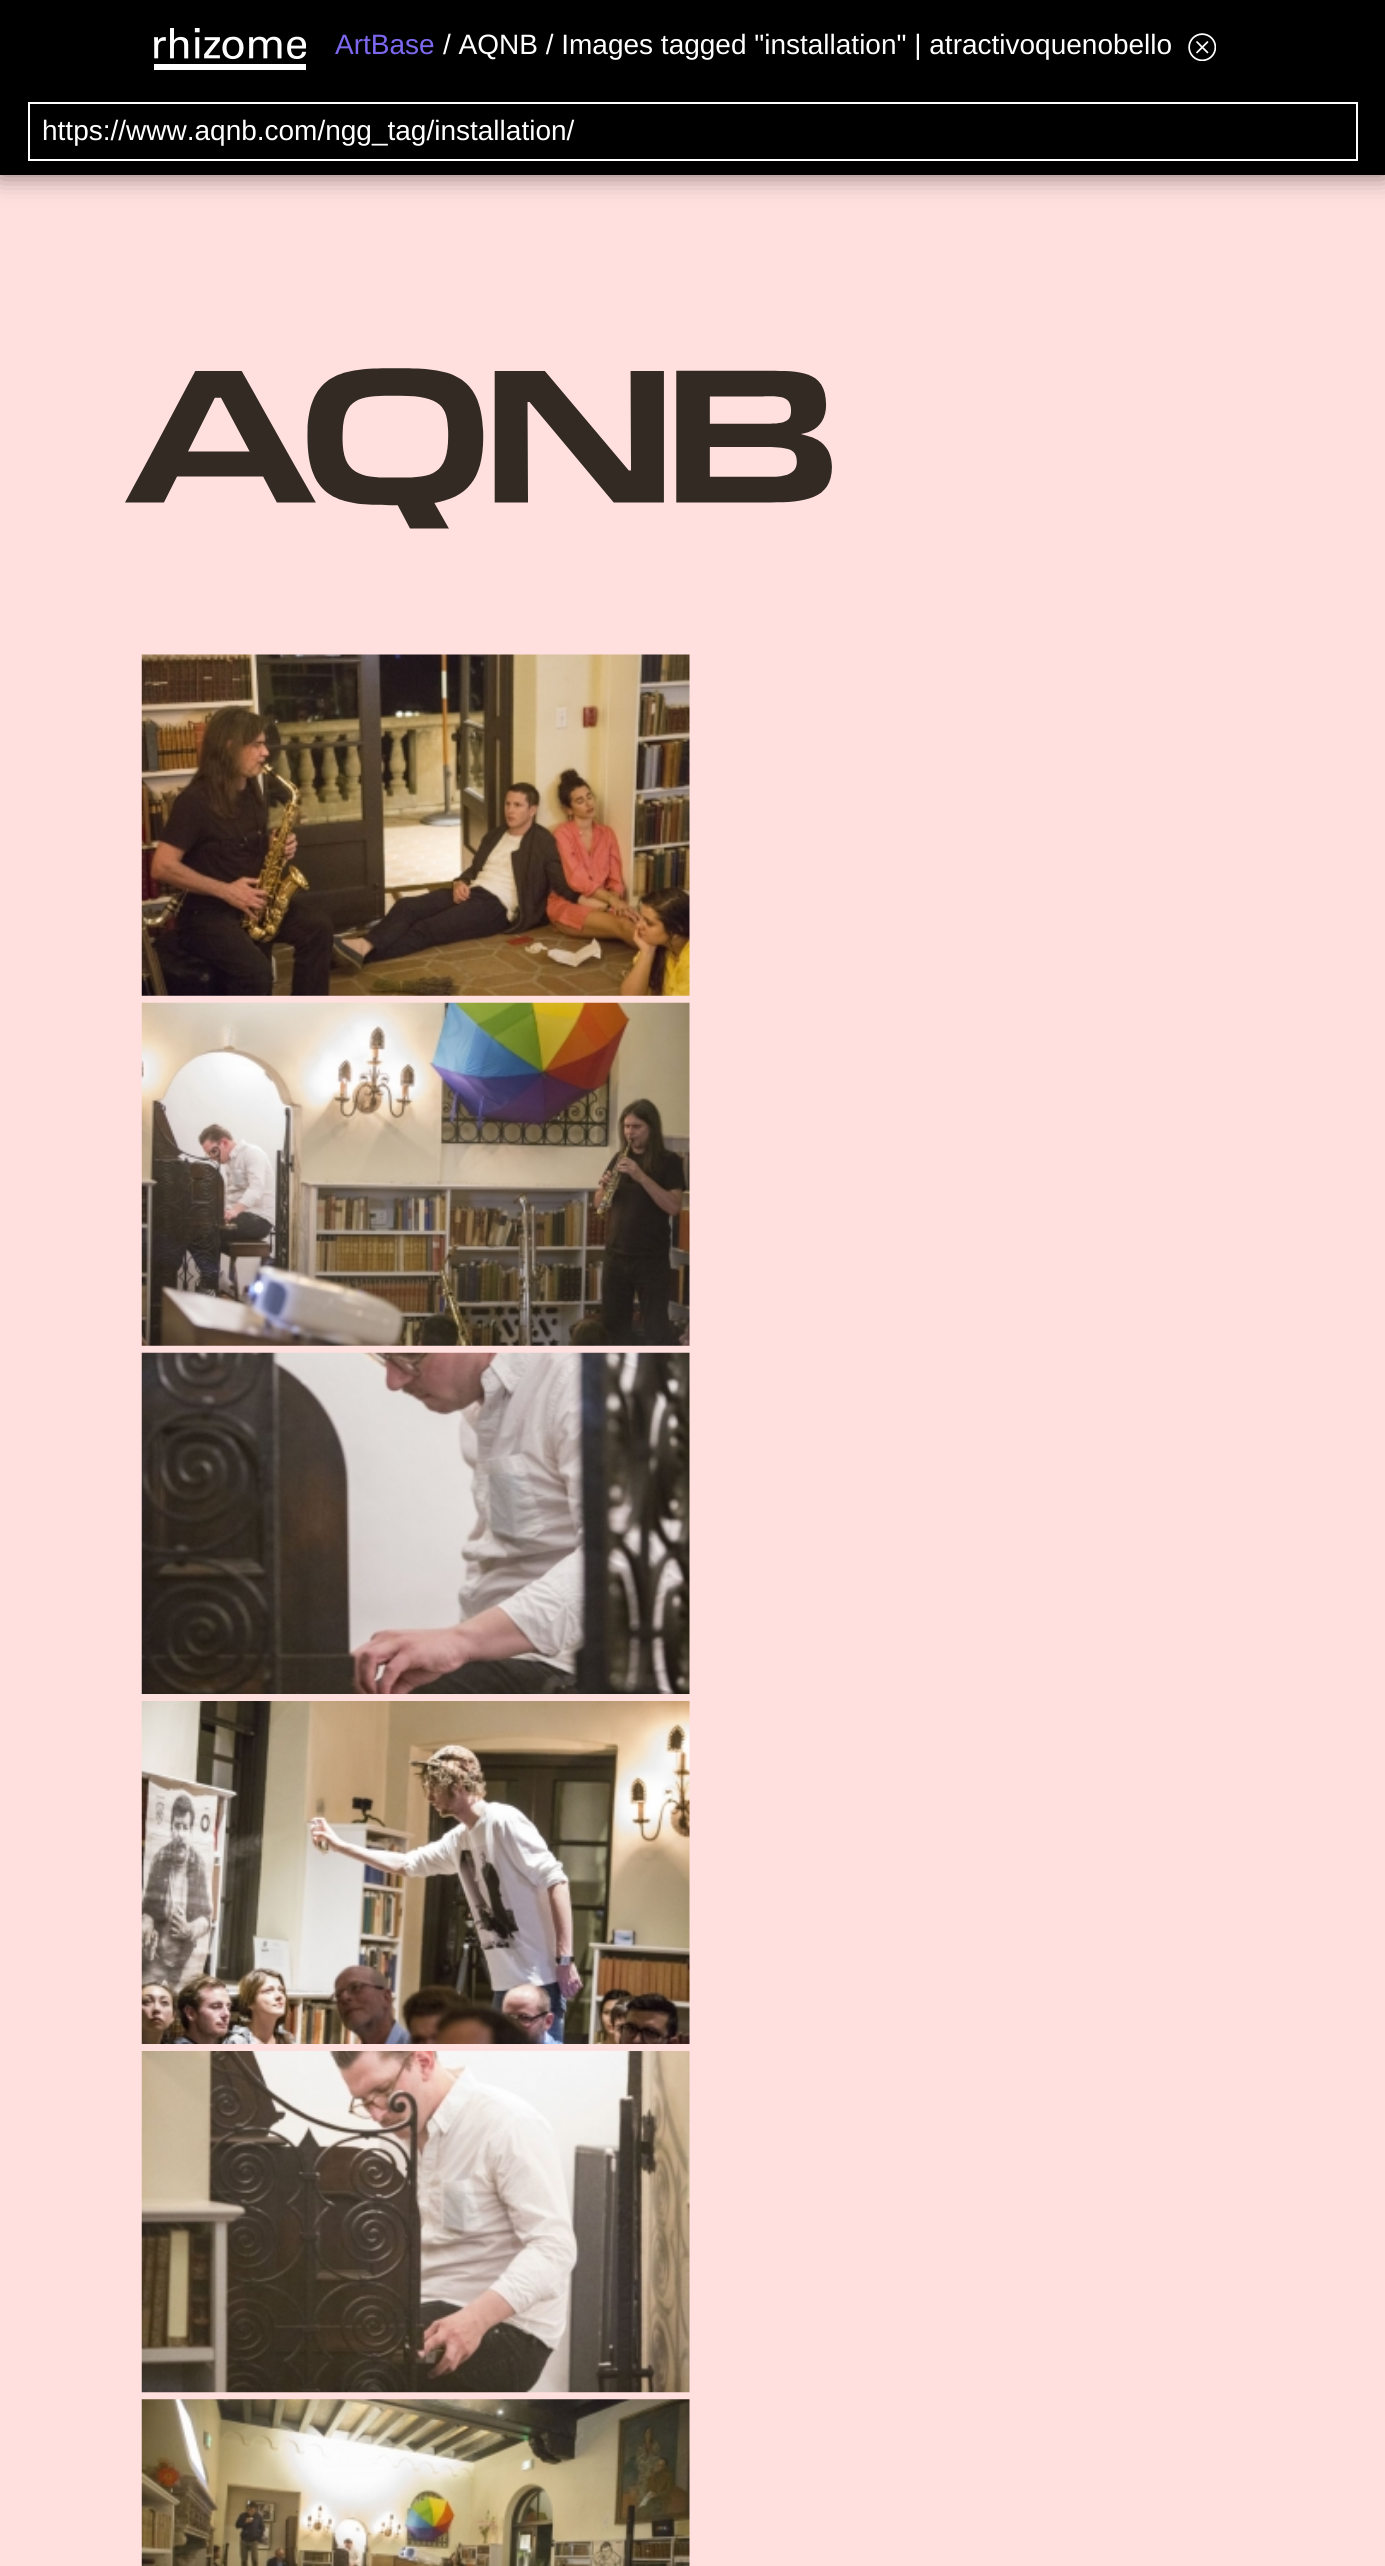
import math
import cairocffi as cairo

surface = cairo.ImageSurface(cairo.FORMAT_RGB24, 1385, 2566)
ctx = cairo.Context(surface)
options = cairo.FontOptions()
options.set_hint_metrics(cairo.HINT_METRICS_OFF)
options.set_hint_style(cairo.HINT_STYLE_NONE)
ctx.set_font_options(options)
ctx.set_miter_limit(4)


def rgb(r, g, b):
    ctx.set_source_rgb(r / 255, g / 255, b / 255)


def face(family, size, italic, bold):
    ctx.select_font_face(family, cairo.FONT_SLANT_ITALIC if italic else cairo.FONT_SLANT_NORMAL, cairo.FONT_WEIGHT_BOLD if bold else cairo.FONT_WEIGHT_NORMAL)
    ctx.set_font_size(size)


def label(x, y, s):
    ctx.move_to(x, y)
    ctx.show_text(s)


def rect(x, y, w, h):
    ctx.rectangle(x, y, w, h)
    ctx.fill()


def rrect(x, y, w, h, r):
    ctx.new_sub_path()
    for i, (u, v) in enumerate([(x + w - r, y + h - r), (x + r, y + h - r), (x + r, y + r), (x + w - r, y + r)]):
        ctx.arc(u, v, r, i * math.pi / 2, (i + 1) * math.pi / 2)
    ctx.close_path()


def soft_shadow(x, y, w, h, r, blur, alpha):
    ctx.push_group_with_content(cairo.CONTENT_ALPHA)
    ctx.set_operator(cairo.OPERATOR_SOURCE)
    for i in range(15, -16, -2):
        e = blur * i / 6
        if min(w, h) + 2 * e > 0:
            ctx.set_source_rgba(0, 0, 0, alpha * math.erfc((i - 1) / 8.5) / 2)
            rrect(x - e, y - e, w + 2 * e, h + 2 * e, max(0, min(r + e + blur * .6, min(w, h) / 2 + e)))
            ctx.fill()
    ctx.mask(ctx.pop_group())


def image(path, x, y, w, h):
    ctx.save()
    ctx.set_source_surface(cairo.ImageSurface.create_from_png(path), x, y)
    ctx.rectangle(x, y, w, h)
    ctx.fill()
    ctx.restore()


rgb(255, 255, 255)
ctx.paint()
image('image2.png', 0, 175, 1385, 2391)
rgb(0, 0, 0)
soft_shadow(0, 0, 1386, 175, 0, 13, 0.5)
rgb(0, 0, 0)
rect(0, 0, 1385, 175)
image('image0.png', 154, 28, 152, 42)
face('Liberation Sans', 28, 0, 0)
rgb(123, 104, 238)
label(335, 54, 'ArtBase')
rgb(255, 255, 255)
label(443, 54, '/ AQNB / Images tagged "installation" | atractivoquenobello')
image('image1.png', 1188, 33, 28, 28)
ctx.rectangle(29, 103, 1328, 57)
ctx.stroke()
label(42, 140, 'https://www.aqnb.com/ngg_tag/installation/')
surface.write_to_png('render.png')
